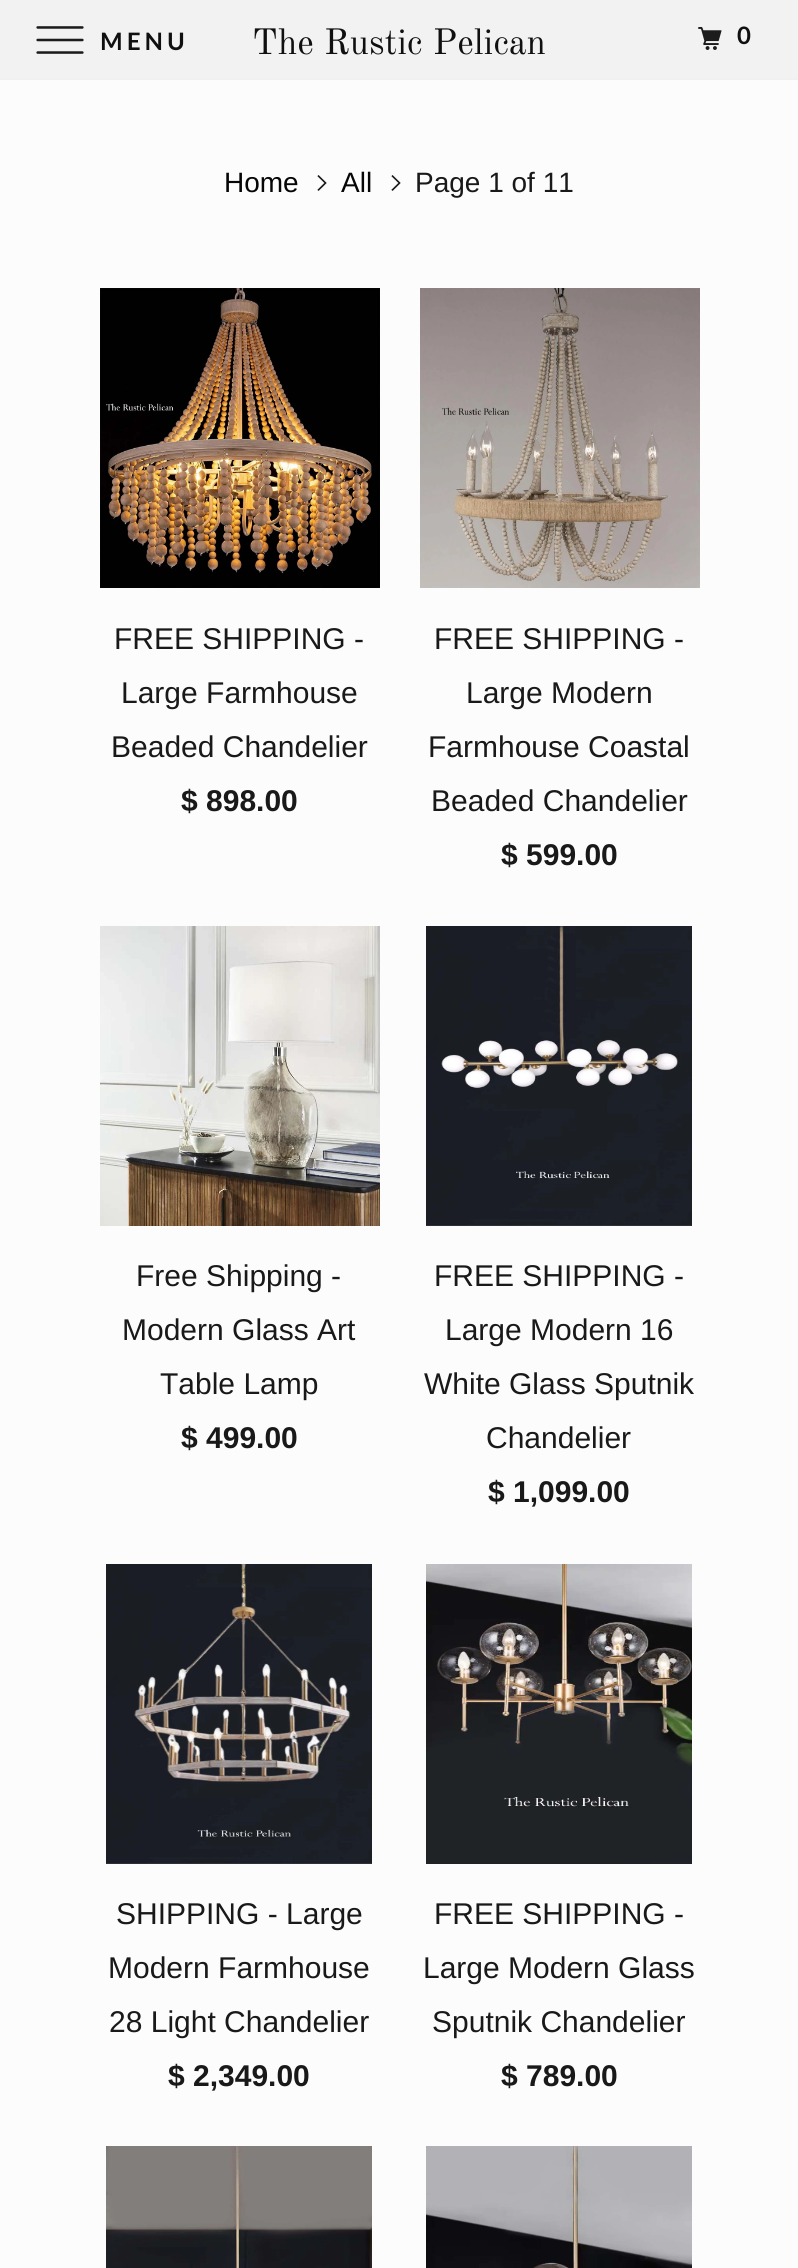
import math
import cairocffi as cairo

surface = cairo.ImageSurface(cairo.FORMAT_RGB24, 798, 2268)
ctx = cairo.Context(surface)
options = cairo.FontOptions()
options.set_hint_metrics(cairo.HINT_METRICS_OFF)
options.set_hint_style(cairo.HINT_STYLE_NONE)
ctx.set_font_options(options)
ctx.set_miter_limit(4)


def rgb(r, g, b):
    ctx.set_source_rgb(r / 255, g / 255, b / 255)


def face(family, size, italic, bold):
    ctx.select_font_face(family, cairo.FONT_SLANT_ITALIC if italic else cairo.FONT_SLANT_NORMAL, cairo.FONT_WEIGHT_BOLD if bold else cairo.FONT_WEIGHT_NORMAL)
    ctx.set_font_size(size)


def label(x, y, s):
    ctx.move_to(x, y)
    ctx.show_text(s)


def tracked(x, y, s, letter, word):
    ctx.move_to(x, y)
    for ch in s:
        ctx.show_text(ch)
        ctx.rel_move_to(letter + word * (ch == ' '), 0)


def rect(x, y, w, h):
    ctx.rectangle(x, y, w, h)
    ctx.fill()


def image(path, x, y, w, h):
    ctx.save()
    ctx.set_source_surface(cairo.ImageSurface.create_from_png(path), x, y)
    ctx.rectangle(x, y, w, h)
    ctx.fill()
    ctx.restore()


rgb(252, 252, 252)
ctx.paint()
rgb(242, 242, 242)
rect(0, 0, 798, 78)
rgb(240, 240, 240)
rect(0, 78, 798, 2)
image('image0.png', 36, 26, 48, 28)
face('Lato', 24, 0, 1)
rgb(16, 16, 16)
tracked(100, 50, 'MENU', 4, 0)
face('Old Standard TT', 36, 0, 0)
label(252, 54, 'The Rustic Pelican')
image('image1.png', 698, 27, 24, 23)
face('Lato', 24, 0, 1)
tracked(737, 44, '0', 4, 0)
face('Liberation Sans', 28, 0, 0)
rgb(7, 6, 6)
label(224, 192, 'Home')
image('image2.png', 317, 175, 10, 16)
label(341, 192, 'All')
image('image2.png', 391, 175, 10, 16)
rgb(25, 25, 25)
label(415, 192, 'Page 1 of 11')
image('image3.png', 100, 288, 280, 300)
face('Liberation Sans', 30, 0, 0)
label(114, 649, 'FREE SHIPPING -')
label(121, 703, 'Large Farmhouse')
label(111, 757, 'Beaded Chandelier')
face('Liberation Sans', 30, 0, 1)
label(181, 811, '$ 898.00')
image('image4.png', 420, 288, 280, 300)
face('Liberation Sans', 30, 0, 0)
label(434, 649, 'FREE SHIPPING -')
label(466, 703, 'Large Modern')
label(428, 757, 'Farmhouse Coastal')
label(431, 811, 'Beaded Chandelier')
face('Liberation Sans', 30, 0, 1)
label(501, 865, '$ 599.00')
image('image5.png', 100, 926, 280, 300)
face('Liberation Sans', 30, 0, 0)
label(136, 1286, 'Free Shipping -')
label(122, 1340, 'Modern Glass Art')
label(160, 1394, 'Table Lamp')
face('Liberation Sans', 30, 0, 1)
label(181, 1448, '$ 499.00')
image('image6.png', 426, 926, 266, 300)
face('Liberation Sans', 30, 0, 0)
label(434, 1286, 'FREE SHIPPING -')
label(445, 1340, 'Large Modern 16')
label(424, 1394, 'White Glass Sputnik')
label(486, 1448, 'Chandelier')
face('Liberation Sans', 30, 0, 1)
label(488, 1502, '$ 1,099.00')
image('image7.png', 106, 1564, 266, 300)
face('Liberation Sans', 30, 0, 0)
label(116, 1924, 'SHIPPING - Large')
label(108, 1978, 'Modern Farmhouse')
label(109, 2032, '28 Light Chandelier')
face('Liberation Sans', 30, 0, 1)
label(168, 2086, '$ 2,349.00')
image('image8.png', 426, 1564, 266, 300)
face('Liberation Sans', 30, 0, 0)
label(434, 1924, 'FREE SHIPPING -')
label(423, 1978, 'Large Modern Glass')
label(432, 2032, 'Sputnik Chandelier')
face('Liberation Sans', 30, 0, 1)
label(501, 2086, '$ 789.00')
image('image9.png', 106, 2146, 266, 122)
image('image10.png', 426, 2146, 266, 122)
surface.write_to_png('render.png')
